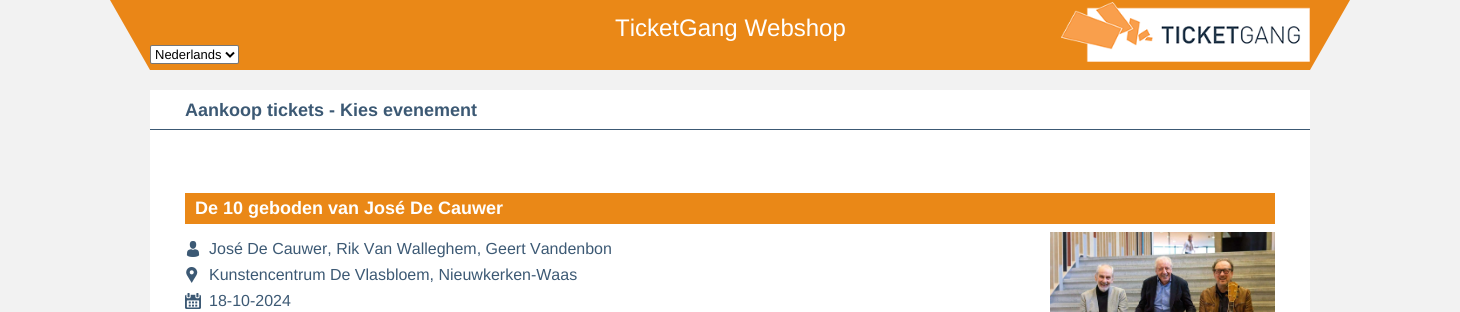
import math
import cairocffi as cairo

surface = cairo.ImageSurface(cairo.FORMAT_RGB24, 1460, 312)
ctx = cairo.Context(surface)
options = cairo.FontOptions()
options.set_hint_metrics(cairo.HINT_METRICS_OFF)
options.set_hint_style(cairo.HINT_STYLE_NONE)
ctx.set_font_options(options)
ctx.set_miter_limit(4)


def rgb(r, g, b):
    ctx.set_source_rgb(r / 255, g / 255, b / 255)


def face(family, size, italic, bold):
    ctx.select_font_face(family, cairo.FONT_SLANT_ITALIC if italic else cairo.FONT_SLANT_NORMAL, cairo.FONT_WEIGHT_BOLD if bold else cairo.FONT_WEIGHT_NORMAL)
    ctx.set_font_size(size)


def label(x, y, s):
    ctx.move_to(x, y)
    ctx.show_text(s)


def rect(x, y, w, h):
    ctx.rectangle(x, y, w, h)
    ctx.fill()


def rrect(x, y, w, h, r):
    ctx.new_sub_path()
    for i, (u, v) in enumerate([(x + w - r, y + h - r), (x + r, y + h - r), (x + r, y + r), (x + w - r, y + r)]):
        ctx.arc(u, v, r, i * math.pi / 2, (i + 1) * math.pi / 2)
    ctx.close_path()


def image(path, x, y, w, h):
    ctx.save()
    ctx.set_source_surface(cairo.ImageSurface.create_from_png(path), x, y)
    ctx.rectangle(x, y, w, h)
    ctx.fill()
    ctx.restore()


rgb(242, 242, 242)
ctx.paint()
rgb(234, 136, 23)
rect(150, 0, 1160, 70)
rgb(234, 134, 23)
ctx.new_path()
ctx.move_to(150, 0)
ctx.line_to(150, 70)
ctx.line_to(110, 0)
ctx.close_path()
ctx.fill()
face('Liberation Sans', 24, 0, 0)
rgb(255, 255, 255)
label(615, 36, 'TicketGang Webshop')
image('image0.png', 1061, 2, 249, 60)
rrect(150.5, 45.5, 88, 18, 1.5)
ctx.fill_preserve()
rgb(118, 118, 118)
ctx.set_line_width(1)
ctx.stroke()
ctx.new_path()
ctx.move_to(226, 52.5)
ctx.line_to(230, 56.5)
ctx.line_to(234, 52.5)
rgb(0, 0, 0)
ctx.set_line_width(2)
ctx.stroke()
face('Liberation Sans', 13, 0, 0)
label(155, 59, 'Nederlands')
rgb(234, 134, 23)
ctx.new_path()
ctx.move_to(1310, 0)
ctx.line_to(1350, 0)
ctx.line_to(1310, 70)
ctx.close_path()
ctx.fill()
rgb(255, 255, 255)
rect(150, 90, 1160, 222)
rgb(60, 89, 116)
rect(150, 129, 1160, 1)
face('Liberation Sans', 18, 0, 1)
label(185, 116, 'Aankoop tickets - Kies evenement')
rgb(234, 136, 23)
rect(185, 193, 1090, 31)
rgb(255, 255, 255)
label(195, 214, 'De 10 geboden van José De Cauwer')
image('image1.png', 186, 241, 14, 16)
face('Liberation Sans', 16, 0, 0)
rgb(60, 89, 116)
label(209, 254, 'José De Cauwer, Rik Van Walleghem, Geert Vandenbon')
image('image2.png', 186, 267, 12, 16)
label(209, 280, 'Kunstencentrum De Vlasbloem, Nieuwkerken-Waas')
image('image3.png', 185, 293, 16, 16)
label(209, 306, '18-10-2024')
image('image4.png', 1050, 232, 225, 80)
surface.write_to_png('render.png')
